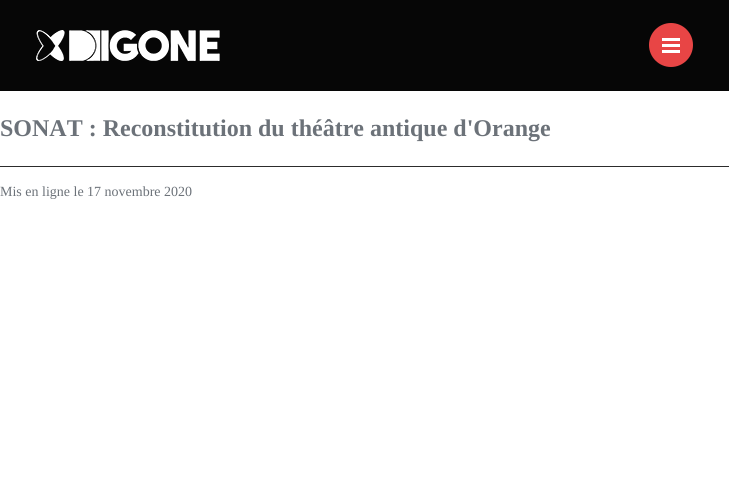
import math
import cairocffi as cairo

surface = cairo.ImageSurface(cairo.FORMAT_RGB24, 729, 492)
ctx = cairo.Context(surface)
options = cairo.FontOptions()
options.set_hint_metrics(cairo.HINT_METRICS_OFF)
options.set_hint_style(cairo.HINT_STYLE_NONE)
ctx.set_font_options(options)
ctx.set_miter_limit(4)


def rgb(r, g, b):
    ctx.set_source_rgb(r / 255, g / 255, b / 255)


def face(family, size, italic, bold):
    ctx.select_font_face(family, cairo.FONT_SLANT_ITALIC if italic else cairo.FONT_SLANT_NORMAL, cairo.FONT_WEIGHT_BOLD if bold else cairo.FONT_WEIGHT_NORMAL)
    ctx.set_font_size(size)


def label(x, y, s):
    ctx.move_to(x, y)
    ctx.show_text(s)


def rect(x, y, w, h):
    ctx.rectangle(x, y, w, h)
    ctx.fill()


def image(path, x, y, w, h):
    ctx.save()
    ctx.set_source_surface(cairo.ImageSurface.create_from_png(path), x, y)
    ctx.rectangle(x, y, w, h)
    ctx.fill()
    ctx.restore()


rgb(255, 255, 255)
ctx.paint()
rgb(6, 6, 6)
rect(0, 0, 729, 91)
image('image0.png', 36, 30, 184, 31)
rgb(232, 69, 69)
ctx.arc(671, 45, 22, 0, 2 * math.pi)
ctx.fill()
rgb(255, 255, 255)
rect(662, 44, 18, 3)
rect(662, 38, 18, 3)
rect(662, 50, 18, 3)
rgb(44, 44, 44)
rect(0, 166, 729, 1)
face('Liberation Serif', 24, 0, 1)
rgb(108, 114, 121)
label(0, 136, 'SONAT : Reconstitution du théâtre antique d\'Orange')
face('Liberation Serif', 14, 0, 0)
label(0, 196, 'Mis en ligne le 17 novembre 2020')
surface.write_to_png('render.png')
